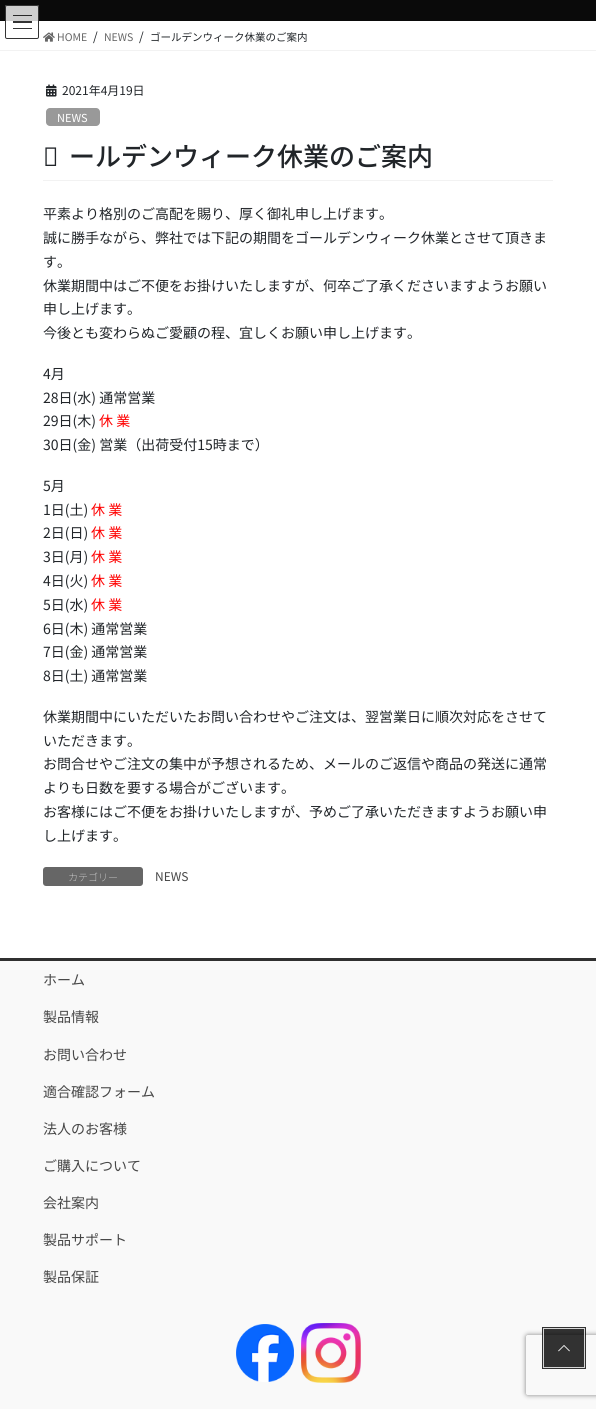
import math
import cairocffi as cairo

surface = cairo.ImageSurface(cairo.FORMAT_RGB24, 596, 1409)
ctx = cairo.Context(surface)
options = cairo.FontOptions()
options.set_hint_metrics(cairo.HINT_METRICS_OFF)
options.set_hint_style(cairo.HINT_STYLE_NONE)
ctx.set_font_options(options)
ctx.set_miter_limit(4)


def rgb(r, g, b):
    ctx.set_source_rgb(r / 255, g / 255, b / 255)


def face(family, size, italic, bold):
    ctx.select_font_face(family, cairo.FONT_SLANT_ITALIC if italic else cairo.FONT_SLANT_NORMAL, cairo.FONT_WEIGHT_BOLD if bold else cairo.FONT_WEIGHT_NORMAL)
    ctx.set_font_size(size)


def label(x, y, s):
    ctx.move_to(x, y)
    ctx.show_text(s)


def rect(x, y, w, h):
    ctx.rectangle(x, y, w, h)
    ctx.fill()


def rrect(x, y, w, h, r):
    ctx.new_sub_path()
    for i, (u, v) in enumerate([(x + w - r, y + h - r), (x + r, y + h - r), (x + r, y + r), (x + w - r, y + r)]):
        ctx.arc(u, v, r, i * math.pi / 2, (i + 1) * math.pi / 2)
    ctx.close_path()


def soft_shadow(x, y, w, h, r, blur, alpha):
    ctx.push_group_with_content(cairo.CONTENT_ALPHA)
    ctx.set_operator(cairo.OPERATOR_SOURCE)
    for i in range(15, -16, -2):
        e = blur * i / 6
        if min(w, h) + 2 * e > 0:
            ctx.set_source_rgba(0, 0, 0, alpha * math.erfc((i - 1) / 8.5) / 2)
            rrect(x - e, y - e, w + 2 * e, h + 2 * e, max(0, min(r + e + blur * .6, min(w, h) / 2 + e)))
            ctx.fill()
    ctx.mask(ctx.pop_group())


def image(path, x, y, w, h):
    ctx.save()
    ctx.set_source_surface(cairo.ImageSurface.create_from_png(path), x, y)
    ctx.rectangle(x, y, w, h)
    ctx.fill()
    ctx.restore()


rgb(255, 255, 255)
ctx.paint()
rgb(10, 10, 10)
rect(0, 0, 596, 21)
ctx.set_source_rgba(1, 1, 1, 0.8)
rrect(5, 5, 34, 34, 2)
ctx.fill()
rgb(41, 41, 41)
rect(13, 15, 19, 1)
rgb(51, 51, 51)
rect(13, 21, 19, 2)
rect(13, 28, 19, 1)
rrect(5.5, 5.5, 33, 33, 1.5)
ctx.set_line_width(1)
ctx.stroke()
rgb(242, 242, 242)
rect(0, 50, 596, 1)
image('image0.png', 43, 32, 12, 10)
face('Noto Sans JP', 10.5, 0, 0)
rgb(102, 102, 102)
label(57, 41, 'HOME')
face('Noto Sans JP', 12, 0, 0)
rgb(33, 37, 41)
label(93, 41, '/')
face('Noto Sans JP', 10.5, 0, 0)
rgb(102, 102, 102)
label(104, 41, 'NEWS')
face('Noto Sans JP', 12, 0, 0)
rgb(33, 37, 41)
label(139, 41, '/')
face('Noto Sans JP', 10.5, 0, 0)
label(150, 41, 'ゴールデンウィーク休業のご案内')
rgb(242, 242, 242)
rect(43, 180, 510, 1)
image('image1.png', 46, 84, 11, 13)
face('Noto Sans JP', 12, 0, 0)
rgb(33, 37, 41)
label(62, 95, '2021年4月19日')
rgb(153, 153, 153)
rrect(46, 108, 54, 18, 4)
ctx.fill()
face('Noto Sans JP', 11, 0, 0)
rgb(255, 255, 255)
label(57, 122, 'NEWS')
face('Noto Sans Medium', 26, 0, 0)
rgb(33, 37, 41)
label(43, 166, 'ゴ')
face('Noto Sans JP Medium', 26, 0, 0)
label(69, 166, 'ールデンウィーク休業のご案内')
face('Noto Sans JP', 14, 0, 0)
label(43, 219, '平素より格別のご高配を賜り、厚く御礼申し上げます。')
label(43, 243, '誠に勝手ながら、弊社では下記の期間をゴールデンウィーク休業とさせて頂きま')
label(43, 267, 'す。')
label(43, 291, '休業期間中はご不便をお掛けいたしますが、何卒ご了承くださいますようお願い')
label(43, 314, '申し上げます。')
label(43, 338, '今後とも変わらぬご愛顧の程、宜しくお願い申し上げます。')
label(43, 379, '4月')
label(43, 403, '28日(水) 通常営業')
label(43, 426, '29日(木)')
rgb(255, 0, 0)
label(99, 426, '休 業')
rgb(33, 37, 41)
label(43, 450, '30日(金) 営業（出荷受付15時まで）')
label(43, 491, '5月')
label(43, 515, '1日(土)')
rgb(255, 0, 0)
label(91, 515, '休 業')
rgb(33, 37, 41)
label(43, 538, '2日(日)')
rgb(255, 0, 0)
label(91, 538, '休 業')
rgb(33, 37, 41)
label(43, 562, '3日(月)')
rgb(255, 0, 0)
label(91, 562, '休 業')
rgb(33, 37, 41)
label(43, 586, '4日(火)')
rgb(255, 0, 0)
label(91, 586, '休 業')
rgb(33, 37, 41)
label(43, 610, '5日(水)')
rgb(255, 0, 0)
label(91, 610, '休 業')
rgb(33, 37, 41)
label(43, 634, '6日(木) 通常営業')
label(43, 657, '7日(金) 通常営業')
label(43, 681, '8日(土) 通常営業')
label(43, 722, '休業期間中にいただいたお問い合わせやご注文は、翌営業日に順次対応をさせて')
label(43, 746, 'いただきます。')
label(43, 769, 'お問合せやご注文の集中が予想されるため、メールのご返信や商品の発送に通常')
label(43, 793, 'よりも日数を要する場合がございます。')
label(43, 817, 'お客様にはご不便をお掛けいたしますが、予めご了承いただきますようお願い申')
label(43, 841, 'し上げます。')
rgb(102, 102, 102)
rrect(43, 867, 100, 19, 3)
ctx.fill()
face('Noto Sans JP Thin', 10, 0, 0)
rgb(255, 255, 255)
label(68, 881, 'カテゴリー')
face('Noto Sans JP', 12, 0, 0)
rgb(70, 70, 70)
label(155, 881, 'NEWS')
rgb(249, 249, 249)
rect(0, 961, 596, 448)
rgb(48, 48, 48)
rect(0, 958, 596, 3)
face('Noto Sans JP', 14, 0, 0)
rgb(70, 70, 70)
label(43, 985, 'ホーム')
label(43, 1022, '製品情報')
label(43, 1060, 'お問い合わせ')
label(43, 1097, '適合確認フォーム')
label(43, 1134, '法人のお客様')
label(43, 1171, 'ご購入について')
label(43, 1208, '会社案内')
label(43, 1245, '製品サポート')
label(43, 1282, '製品保証')
image('image2.png', 236, 1324, 58, 58)
image('image3.png', 301, 1323, 60, 60)
ctx.save()
ctx.set_fill_rule(cairo.FILL_RULE_EVEN_ODD)
ctx.new_path()
ctx.move_to(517, 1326)
ctx.line_to(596, 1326)
ctx.line_to(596, 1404)
ctx.line_to(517, 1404)
ctx.close_path()
ctx.move_to(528, 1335)
ctx.line_to(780, 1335)
ctx.curve_to(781, 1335, 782, 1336, 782, 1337)
ctx.line_to(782, 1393)
ctx.curve_to(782, 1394, 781, 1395, 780, 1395)
ctx.line_to(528, 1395)
ctx.curve_to(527, 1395, 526, 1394, 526, 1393)
ctx.line_to(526, 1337)
ctx.curve_to(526, 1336, 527, 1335, 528, 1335)
ctx.close_path()
ctx.clip()
rgb(128, 128, 128)
soft_shadow(526, 1335, 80, 60, 2, 2.5, 1)
ctx.restore()
ctx.rectangle(543, 1328, 42, 40)
ctx.set_source_rgba(0, 0, 0, 0.8)
ctx.set_line_width(2)
ctx.stroke()
ctx.rectangle(543.5, 1328.5, 41, 39)
ctx.set_source_rgba(1, 1, 1, 0.8)
ctx.set_line_width(1)
ctx.stroke()
ctx.set_source_rgba(0, 0, 0, 0.8)
rect(544, 1329, 40, 38)
image('image4.png', 558, 1345, 12, 7)
surface.write_to_png('render.png')
